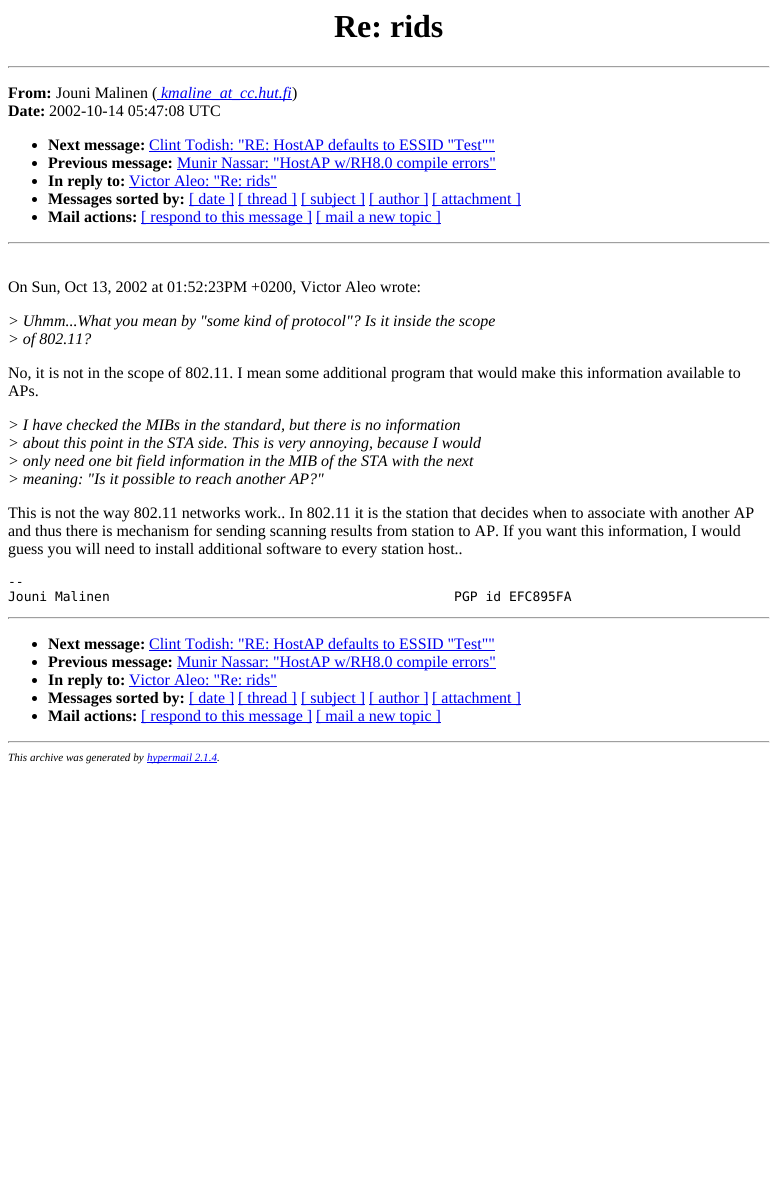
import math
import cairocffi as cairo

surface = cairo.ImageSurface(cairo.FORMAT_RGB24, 778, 1181)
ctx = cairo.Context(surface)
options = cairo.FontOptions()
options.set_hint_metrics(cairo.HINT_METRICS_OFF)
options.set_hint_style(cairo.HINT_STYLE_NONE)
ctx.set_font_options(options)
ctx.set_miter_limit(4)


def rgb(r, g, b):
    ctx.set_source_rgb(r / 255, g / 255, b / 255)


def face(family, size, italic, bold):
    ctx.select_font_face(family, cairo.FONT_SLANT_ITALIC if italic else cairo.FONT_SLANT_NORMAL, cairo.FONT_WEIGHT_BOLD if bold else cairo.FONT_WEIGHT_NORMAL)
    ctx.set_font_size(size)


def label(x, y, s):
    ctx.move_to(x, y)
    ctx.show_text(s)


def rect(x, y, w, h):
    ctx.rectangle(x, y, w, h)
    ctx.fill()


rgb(255, 255, 255)
ctx.paint()
face('Liberation Serif', 32, 0, 1)
rgb(0, 0, 0)
label(334, 37, 'Re: rids')
rgb(159, 159, 159)
rect(8, 66, 762, 1)
rgb(238, 238, 238)
rect(769, 66, 1, 2)
rect(8, 67, 762, 1)
rgb(159, 159, 159)
rect(8, 66, 1, 2)
face('Liberation Serif', 16, 0, 1)
rgb(0, 0, 0)
label(8, 98, 'From:')
face('Liberation Serif', 16, 0, 0)
label(56, 98, 'Jouni Malinen (')
rgb(0, 0, 238)
rect(157, 99, 135, 1)
face('Liberation Serif', 16, 1, 0)
label(161, 98, 'kmaline_at_cc.hut.fi')
face('Liberation Serif', 16, 0, 0)
rgb(0, 0, 0)
label(292, 98, ')')
face('Liberation Serif', 16, 0, 1)
label(8, 116, 'Date:')
face('Liberation Serif', 16, 0, 0)
label(49, 116, '2002-10-14 05:47:08 UTC')
ctx.new_path()
ctx.arc(34.5, 145.5, 2.5, 0, 2 * math.pi)
ctx.fill()
face('Liberation Serif', 16, 0, 1)
label(48, 150, 'Next message:')
face('Liberation Serif', 16, 0, 0)
rgb(0, 0, 238)
label(149, 150, 'Clint Todish: "RE: HostAP defaults to ESSID "Test""')
rect(149, 151, 346, 1)
rgb(0, 0, 0)
ctx.new_path()
ctx.arc(34.5, 163.5, 2.5, 0, 2 * math.pi)
ctx.fill()
face('Liberation Serif', 16, 0, 1)
label(48, 168, 'Previous message:')
rgb(0, 0, 238)
rect(177, 169, 319, 1)
face('Liberation Serif', 16, 0, 0)
label(177, 168, 'Munir Nassar: "HostAP w/RH8.0 compile errors"')
rgb(0, 0, 0)
ctx.new_path()
ctx.arc(34.5, 181.5, 2.5, 0, 2 * math.pi)
ctx.fill()
face('Liberation Serif', 16, 0, 1)
label(48, 186, 'In reply to:')
face('Liberation Serif', 16, 0, 0)
rgb(0, 0, 238)
label(129, 186, 'Victor Aleo: "Re: rids"')
rect(129, 187, 148, 1)
rgb(0, 0, 0)
ctx.new_path()
ctx.arc(34.5, 199.5, 2.5, 0, 2 * math.pi)
ctx.fill()
face('Liberation Serif', 16, 0, 1)
label(48, 204, 'Messages sorted by:')
rgb(0, 0, 238)
rect(189, 205, 45, 1)
face('Liberation Serif', 16, 0, 0)
label(189, 204, '[ date ]')
rect(238, 205, 59, 1)
label(238, 204, '[ thread ]')
rect(301, 205, 64, 1)
label(301, 204, '[ subject ]')
rect(369, 205, 59, 1)
label(369, 204, '[ author ]')
rect(432, 205, 89, 1)
label(432, 204, '[ attachment ]')
rgb(0, 0, 0)
ctx.new_path()
ctx.arc(34.5, 217.5, 2.5, 0, 2 * math.pi)
ctx.fill()
face('Liberation Serif', 16, 0, 1)
label(48, 222, 'Mail actions:')
rgb(0, 0, 238)
rect(141, 223, 171, 1)
face('Liberation Serif', 16, 0, 0)
label(141, 222, '[ respond to this message ]')
rect(316, 223, 125, 1)
label(316, 222, '[ mail a new topic ]')
rgb(159, 159, 159)
rect(8, 242, 762, 1)
rgb(238, 238, 238)
rect(769, 242, 1, 2)
rect(8, 243, 762, 1)
rgb(159, 159, 159)
rect(8, 242, 1, 2)
rgb(0, 0, 0)
label(8, 292, 'On Sun, Oct 13, 2002 at 01:52:23PM +0200, Victor Aleo wrote:')
face('Liberation Serif', 16, 1, 0)
label(8, 326, '> Uhmm...What you mean by "some kind of protocol"? Is it inside the scope')
label(8, 344, '> of 802.11?')
face('Liberation Serif', 16, 0, 0)
label(8, 378, 'No, it is not in the scope of 802.11. I mean some additional program that would make this information available to')
label(8, 396, 'APs.')
face('Liberation Serif', 16, 1, 0)
label(8, 430, '> I have checked the MIBs in the standard, but there is no information')
label(8, 448, '> about this point in the STA side. This is very annoying, because I would')
label(8, 466, '> only need one bit field information in the MIB of the STA with the next')
label(8, 484, '> meaning: "Is it possible to reach another AP?"')
face('Liberation Serif', 16, 0, 0)
label(8, 518, 'This is not the way 802.11 networks work.. In 802.11 it is the station that decides when to associate with another AP')
label(8, 536, 'and thus there is mechanism for sending scanning results from station to AP. If you want this information, I would')
label(8, 554, 'guess you will need to install additional software to every station host..')
face('DejaVu Sans Mono', 13, 0, 0)
label(8, 586, '--')
label(8, 601, 'Jouni Malinen                                            PGP id EFC895FA')
rgb(159, 159, 159)
rect(8, 617, 762, 1)
rgb(238, 238, 238)
rect(769, 617, 1, 2)
rect(8, 618, 762, 1)
rgb(159, 159, 159)
rect(8, 617, 1, 2)
rgb(0, 0, 0)
ctx.new_path()
ctx.arc(34.5, 644.5, 2.5, 0, 2 * math.pi)
ctx.fill()
face('Liberation Serif', 16, 0, 1)
label(48, 649, 'Next message:')
face('Liberation Serif', 16, 0, 0)
rgb(0, 0, 238)
label(149, 649, 'Clint Todish: "RE: HostAP defaults to ESSID "Test""')
rect(149, 650, 346, 1)
rgb(0, 0, 0)
ctx.new_path()
ctx.arc(34.5, 662.5, 2.5, 0, 2 * math.pi)
ctx.fill()
face('Liberation Serif', 16, 0, 1)
label(48, 667, 'Previous message:')
rgb(0, 0, 238)
rect(177, 668, 319, 1)
face('Liberation Serif', 16, 0, 0)
label(177, 667, 'Munir Nassar: "HostAP w/RH8.0 compile errors"')
rgb(0, 0, 0)
ctx.new_path()
ctx.arc(34.5, 680.5, 2.5, 0, 2 * math.pi)
ctx.fill()
face('Liberation Serif', 16, 0, 1)
label(48, 685, 'In reply to:')
face('Liberation Serif', 16, 0, 0)
rgb(0, 0, 238)
label(129, 685, 'Victor Aleo: "Re: rids"')
rect(129, 686, 148, 1)
rgb(0, 0, 0)
ctx.new_path()
ctx.arc(34.5, 698.5, 2.5, 0, 2 * math.pi)
ctx.fill()
face('Liberation Serif', 16, 0, 1)
label(48, 703, 'Messages sorted by:')
rgb(0, 0, 238)
rect(189, 704, 45, 1)
face('Liberation Serif', 16, 0, 0)
label(189, 703, '[ date ]')
rect(238, 704, 59, 1)
label(238, 703, '[ thread ]')
rect(301, 704, 64, 1)
label(301, 703, '[ subject ]')
rect(369, 704, 59, 1)
label(369, 703, '[ author ]')
rect(432, 704, 89, 1)
label(432, 703, '[ attachment ]')
rgb(0, 0, 0)
ctx.new_path()
ctx.arc(34.5, 716.5, 2.5, 0, 2 * math.pi)
ctx.fill()
face('Liberation Serif', 16, 0, 1)
label(48, 721, 'Mail actions:')
rgb(0, 0, 238)
rect(141, 722, 171, 1)
face('Liberation Serif', 16, 0, 0)
label(141, 721, '[ respond to this message ]')
rect(316, 722, 125, 1)
label(316, 721, '[ mail a new topic ]')
rgb(159, 159, 159)
rect(8, 741, 762, 1)
rgb(238, 238, 238)
rect(769, 741, 1, 2)
rect(8, 742, 762, 1)
rgb(159, 159, 159)
rect(8, 741, 1, 2)
face('Liberation Serif', 11.1, 1, 0)
rgb(0, 0, 0)
label(8, 761, 'This archive was generated by')
rgb(0, 0, 238)
rect(147, 762, 70, 1)
label(147, 761, 'hypermail 2.1.4')
rgb(0, 0, 0)
label(217, 761, '.')
surface.write_to_png('render.png')
